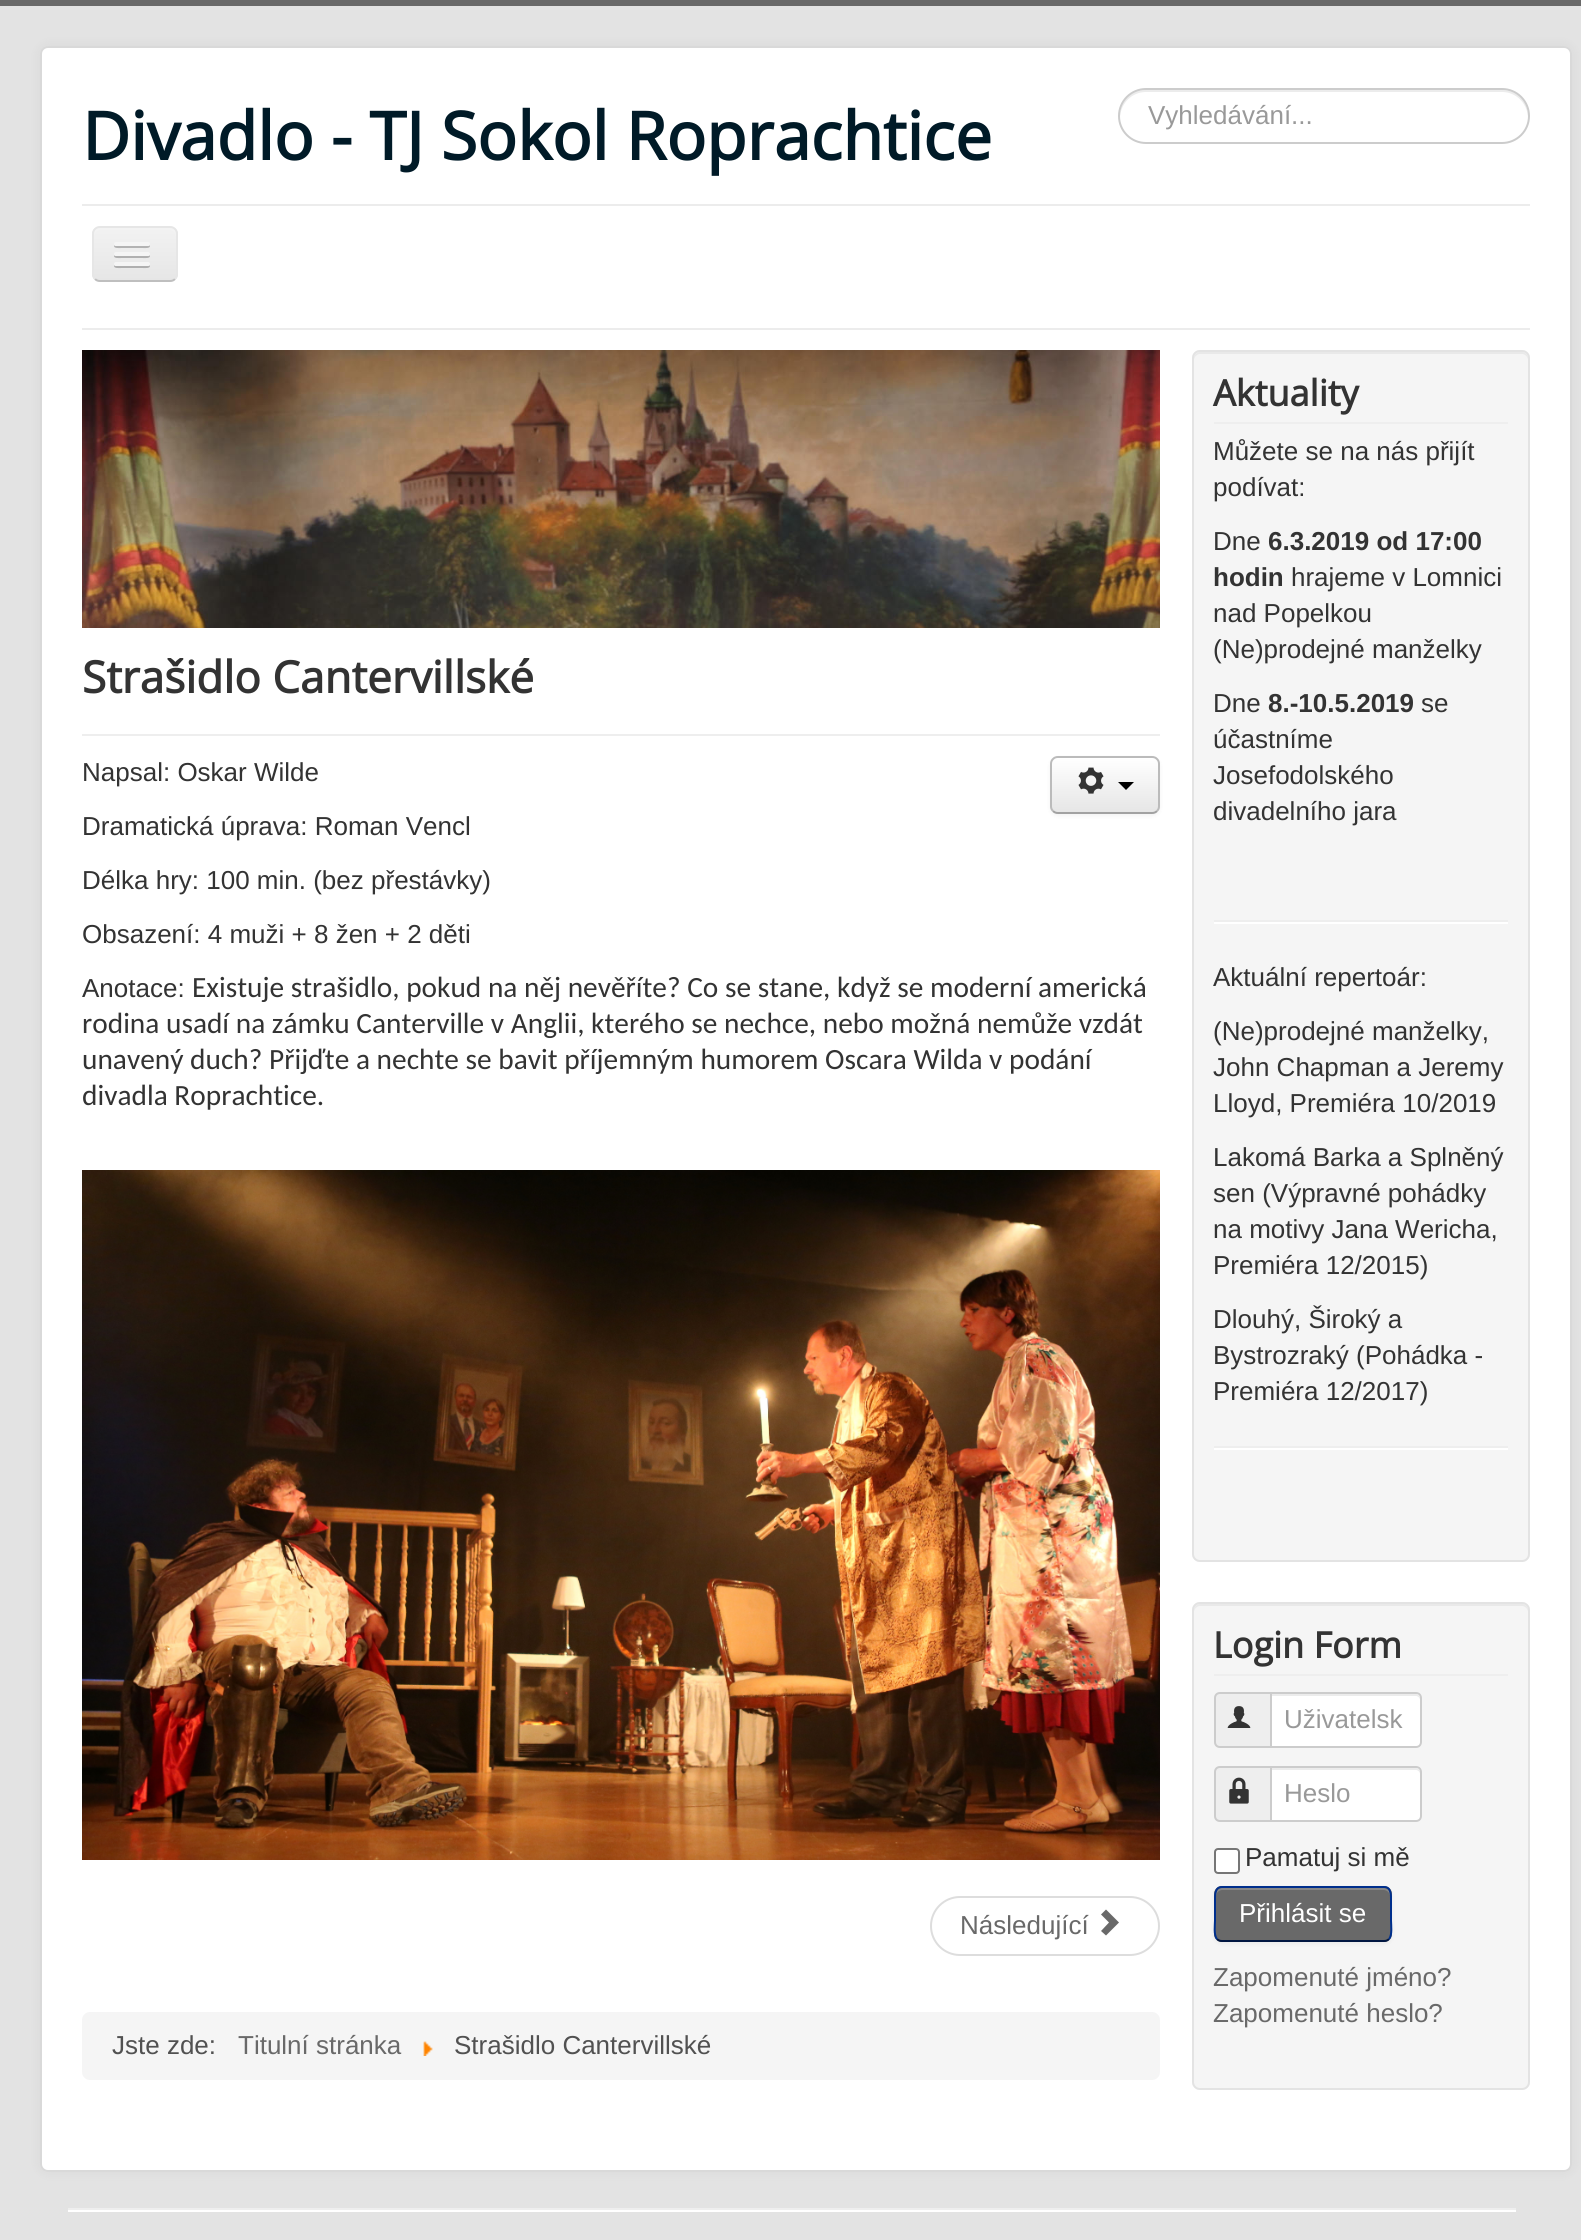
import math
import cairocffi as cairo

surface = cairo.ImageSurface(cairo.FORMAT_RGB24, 1581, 2240)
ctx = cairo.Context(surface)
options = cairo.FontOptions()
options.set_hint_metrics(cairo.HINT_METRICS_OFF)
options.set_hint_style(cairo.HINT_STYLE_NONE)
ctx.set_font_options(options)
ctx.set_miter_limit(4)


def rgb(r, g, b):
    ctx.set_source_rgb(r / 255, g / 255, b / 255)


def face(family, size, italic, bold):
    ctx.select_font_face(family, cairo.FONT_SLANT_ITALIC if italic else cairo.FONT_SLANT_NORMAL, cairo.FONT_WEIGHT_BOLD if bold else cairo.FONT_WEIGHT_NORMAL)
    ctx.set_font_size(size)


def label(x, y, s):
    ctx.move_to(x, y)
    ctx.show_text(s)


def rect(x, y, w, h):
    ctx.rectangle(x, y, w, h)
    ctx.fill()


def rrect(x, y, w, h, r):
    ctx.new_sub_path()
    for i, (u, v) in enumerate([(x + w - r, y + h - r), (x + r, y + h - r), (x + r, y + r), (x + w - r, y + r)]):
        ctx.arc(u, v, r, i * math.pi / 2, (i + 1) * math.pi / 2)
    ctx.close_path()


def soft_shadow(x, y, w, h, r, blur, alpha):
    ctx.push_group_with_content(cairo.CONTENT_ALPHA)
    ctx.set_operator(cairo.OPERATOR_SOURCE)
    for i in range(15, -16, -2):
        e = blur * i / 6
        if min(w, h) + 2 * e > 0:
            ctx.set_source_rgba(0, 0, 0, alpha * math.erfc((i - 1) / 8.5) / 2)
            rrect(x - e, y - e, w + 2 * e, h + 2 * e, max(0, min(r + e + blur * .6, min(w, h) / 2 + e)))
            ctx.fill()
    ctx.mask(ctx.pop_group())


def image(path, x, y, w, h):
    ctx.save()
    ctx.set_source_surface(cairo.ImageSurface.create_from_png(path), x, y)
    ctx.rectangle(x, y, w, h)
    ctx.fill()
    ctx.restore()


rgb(227, 227, 227)
ctx.paint()
rgb(105, 105, 105)
rect(0, 0, 1581, 6)
rgb(0, 0, 0)
soft_shadow(40, 46, 1532, 2126, 8, 6, 0.05)
rgb(255, 255, 255)
rrect(40, 46, 1532, 2126, 8)
ctx.fill()
rrect(41, 47, 1530, 2124, 7)
ctx.set_source_rgba(0, 0, 0, 0.15)
ctx.stroke()
face('Open Sans', 66.2, 0, 1)
rgb(0, 26, 39)
label(82, 160, 'Divadlo - TJ Sokol Roprachtice')
rgb(236, 236, 236)
ctx.new_path()
ctx.move_to(1146, 92)
ctx.line_to(1502, 92)
ctx.curve_to(1516, 92, 1527, 103, 1528, 117)
ctx.curve_to(1529, 102, 1517, 90, 1502, 90)
ctx.line_to(1146, 90)
ctx.curve_to(1131, 90, 1119, 102, 1120, 117)
ctx.curve_to(1121, 103, 1132, 92, 1146, 92)
ctx.close_path()
ctx.fill()
rrect(1119, 89, 410, 54, 27)
rgb(204, 204, 204)
ctx.stroke()
face('Liberation Sans', 26, 0, 0)
rgb(153, 153, 153)
label(1148, 124, 'Vyhledávání...')
rgb(236, 236, 236)
rect(82, 204, 1448, 2)
rect(82, 328, 1448, 2)
ctx.save()
rrect(92, 226, 86, 56, 8)
ctx.clip()
gradient = cairo.LinearGradient(135, 228, 135, 280)
gradient.add_color_stop_rgba(0, 0.949, 0.949, 0.949, 1)
gradient.add_color_stop_rgba(1, 0.902, 0.902, 0.902, 1)
ctx.set_source(gradient)
rect(92, 228, 86, 52)
ctx.restore()
rgb(243, 243, 243)
ctx.new_path()
ctx.move_to(100, 230)
ctx.line_to(170, 230)
ctx.curve_to(173, 230, 176, 233, 176, 236)
ctx.curve_to(176, 225, 167, 228, 158, 228)
ctx.line_to(112, 228)
ctx.curve_to(103, 228, 94, 225, 94, 236)
ctx.curve_to(94, 233, 97, 230, 100, 230)
ctx.close_path()
ctx.fill()
ctx.new_path()
ctx.move_to(175, 279)
ctx.curve_to(173.5, 280.5, 172, 281, 170, 281)
ctx.line_to(100, 281)
ctx.curve_to(98, 281, 96.5, 280.5, 95, 279)
rgb(191, 191, 191)
ctx.stroke()
ctx.new_path()
ctx.move_to(95, 279)
ctx.curve_to(93.5, 277.5, 93, 276, 93, 274)
ctx.line_to(93, 234)
ctx.curve_to(93, 232, 93.5, 230.5, 95, 229)
ctx.curve_to(96.5, 227.5, 98, 227, 100, 227)
ctx.line_to(170, 227)
ctx.curve_to(172, 227, 173.5, 227.5, 175, 229)
ctx.curve_to(176.5, 230.5, 177, 232, 177, 234)
ctx.line_to(177, 274)
ctx.curve_to(177, 276, 176.5, 277.5, 175, 279)
rgb(230, 230, 230)
ctx.stroke()
rgb(179, 179, 179)
ctx.new_path()
ctx.move_to(114.5, 245)
ctx.curve_to(112, 249, 121, 248, 121.5, 248)
ctx.line_to(142.5, 248)
ctx.curve_to(143, 248, 152, 249, 149.5, 245)
ctx.curve_to(149.5, 245.5, 148.5, 246, 148, 246)
ctx.line_to(116, 246)
ctx.curve_to(115.5, 246, 114.5, 245.5, 114.5, 245)
ctx.close_path()
ctx.fill()
rgb(245, 245, 245)
rrect(114, 242, 36, 4, 2)
ctx.fill()
rgb(176, 176, 176)
ctx.new_path()
ctx.move_to(114.5, 255)
ctx.curve_to(112, 259, 121, 258, 121.5, 258)
ctx.line_to(142.5, 258)
ctx.curve_to(143, 258, 152, 259, 149.5, 255)
ctx.curve_to(149.5, 255.5, 148.5, 256, 148, 256)
ctx.line_to(116, 256)
ctx.curve_to(115.5, 256, 114.5, 255.5, 114.5, 255)
ctx.close_path()
ctx.fill()
rgb(245, 245, 245)
rrect(114, 252, 36, 4, 2)
ctx.fill()
rgb(175, 175, 175)
ctx.new_path()
ctx.move_to(114.5, 265)
ctx.curve_to(112, 269, 121, 268, 121.5, 268)
ctx.line_to(142.5, 268)
ctx.curve_to(143, 268, 152, 269, 149.5, 265)
ctx.curve_to(149.5, 265.5, 148.5, 266, 148, 266)
ctx.line_to(116, 266)
ctx.curve_to(115.5, 266, 114.5, 265.5, 114.5, 265)
ctx.close_path()
ctx.fill()
rgb(245, 245, 245)
rrect(114, 262, 36, 4, 2)
ctx.fill()
image('image0.png', 82, 350, 1078, 278)
rgb(238, 238, 238)
rect(82, 734, 1078, 2)
face('Open Sans', 44, 0, 1)
rgb(51, 51, 51)
label(82, 693, 'Strašidlo Cantervillské')
rgb(0, 0, 0)
soft_shadow(1050, 758, 110, 58, 8, 2, 0.05)
ctx.save()
rrect(1050, 756, 110, 58, 8)
ctx.clip()
gradient = cairo.LinearGradient(1105, 758, 1105, 812)
gradient.add_color_stop_rgba(0, 1, 1, 1, 1)
gradient.add_color_stop_rgba(1, 0.902, 0.902, 0.902, 1)
ctx.set_source(gradient)
rect(1050, 758, 110, 54)
ctx.restore()
ctx.new_path()
ctx.move_to(1157, 811)
ctx.curve_to(1155.5, 812.5, 1154, 813, 1152, 813)
ctx.line_to(1058, 813)
ctx.curve_to(1056, 813, 1054.5, 812.5, 1053, 811)
rgb(162, 162, 162)
ctx.stroke()
ctx.new_path()
ctx.move_to(1053, 811)
ctx.curve_to(1051.5, 809.5, 1051, 808, 1051, 806)
ctx.line_to(1051, 764)
ctx.curve_to(1051, 762, 1051.5, 760.5, 1053, 759)
ctx.curve_to(1054.5, 757.5, 1056, 757, 1058, 757)
ctx.line_to(1152, 757)
ctx.curve_to(1154, 757, 1155.5, 757.5, 1157, 759)
ctx.curve_to(1158.5, 760.5, 1159, 762, 1159, 764)
ctx.line_to(1159, 806)
ctx.curve_to(1159, 808, 1158.5, 809.5, 1157, 811)
rgb(187, 187, 187)
ctx.stroke()
image('image1.png', 1078, 767, 26, 27)
rgb(0, 0, 0)
ctx.new_path()
ctx.move_to(1118, 782)
ctx.line_to(1134, 782)
ctx.line_to(1126, 790)
ctx.close_path()
ctx.fill()
face('Liberation Sans', 26, 0, 0)
rgb(51, 51, 51)
label(82, 781, 'Napsal: Oskar Wilde')
label(82, 835, 'Dramatická úprava: Roman Vencl')
label(82, 889, 'Délka hry: 100 min. (bez přestávky)')
label(82, 943, 'Obsazení: 4 muži + 8 žen + 2 děti')
label(82, 997, 'Anotace:')
face('Carlito', 29.35, 0, 0)
label(192, 997, 'Existuje strašidlo, pokud na něj nevěříte? Co se stane, když se moderní americká')
label(82, 1033, 'rodina usadí na zámku Canterville v Anglii, kterého se nechce, nebo možná nemůže vzdát')
label(82, 1069, 'unavený duch? Přijďte a nechte se bavit příjemným humorem Oscara Wilda v podání')
label(82, 1105, 'divadla Roprachtice.')
image('image2.png', 82, 1170, 1078, 690)
rrect(931, 1897, 228, 58, 29)
rgb(221, 221, 221)
ctx.stroke()
face('Liberation Sans', 26, 0, 0)
rgb(105, 105, 105)
label(960, 1934, 'Následující')
ctx.new_path()
ctx.move_to(1106, 1909.5)
ctx.line_to(1119, 1922.5)
ctx.line_to(1106, 1935.5)
ctx.line_to(1101, 1931)
ctx.line_to(1109, 1922.5)
ctx.line_to(1101, 1914.5)
ctx.close_path()
ctx.fill()
rgb(245, 245, 245)
rrect(82, 2012, 1078, 68, 8)
ctx.fill()
rgb(81, 81, 81)
label(112, 2054, 'Jste zde:')
rgb(105, 105, 105)
label(238, 2054, 'Titulní stránka')
image('image3.png', 423, 2041, 10, 15)
rgb(81, 81, 81)
label(454, 2054, 'Strašidlo Cantervillské')
rgb(245, 245, 245)
rrect(1192, 350, 338, 1212, 8)
ctx.fill()
rgb(233, 233, 233)
ctx.new_path()
ctx.move_to(1200, 354)
ctx.line_to(1522, 354)
ctx.curve_to(1525, 354, 1528, 357, 1528, 360)
ctx.line_to(1528, 358)
ctx.curve_to(1528, 355, 1525, 352, 1522, 352)
ctx.line_to(1200, 352)
ctx.curve_to(1197, 352, 1194, 355, 1194, 358)
ctx.line_to(1194, 360)
ctx.curve_to(1194, 357, 1197, 354, 1200, 354)
ctx.close_path()
ctx.fill()
rrect(1193, 351, 336, 1210, 7)
rgb(227, 227, 227)
ctx.stroke()
rgb(238, 238, 238)
rect(1214, 422, 294, 2)
face('Open Sans', 36, 0, 1)
rgb(51, 51, 51)
label(1213, 406, 'Aktuality')
face('Liberation Sans', 26, 0, 0)
label(1213, 460, 'Můžete se na nás přijít')
label(1213, 496, 'podívat:')
label(1213, 550, 'Dne')
face('Liberation Sans', 26, 0, 1)
label(1268, 550, '6.3.2019 od 17:00')
label(1213, 586, 'hodin')
face('Liberation Sans', 26, 0, 0)
label(1291, 586, 'hrajeme v Lomnici')
label(1213, 622, 'nad Popelkou')
label(1213, 658, '(Ne)prodejné manželky')
label(1213, 712, 'Dne')
face('Liberation Sans', 26, 0, 1)
label(1268, 712, '8.-10.5.2019')
face('Liberation Sans', 26, 0, 0)
label(1421, 712, 'se')
label(1213, 748, 'účastníme')
label(1213, 784, 'Josefodolského')
label(1213, 820, 'divadelního jara')
rgb(238, 238, 238)
rect(1214, 920, 294, 2)
rgb(255, 255, 255)
rect(1214, 922, 294, 2)
rgb(51, 51, 51)
label(1213, 986, 'Aktuální repertoár:')
label(1213, 1040, '(Ne)prodejné manželky,')
label(1213, 1076, 'John Chapman a Jeremy')
label(1213, 1112, 'Lloyd, Premiéra 10/2019')
label(1213, 1166, 'Lakomá Barka a Splněný')
label(1213, 1202, 'sen (Výpravné pohádky')
label(1213, 1238, 'na motivy Jana Wericha,')
label(1213, 1274, 'Premiéra 12/2015)')
label(1213, 1328, 'Dlouhý, Široký a')
label(1213, 1364, 'Bystrozraký (Pohádka -')
label(1213, 1400, 'Premiéra 12/2017)')
rgb(238, 238, 238)
rect(1214, 1446, 294, 2)
rgb(255, 255, 255)
rect(1214, 1448, 294, 2)
rgb(245, 245, 245)
rrect(1192, 1602, 338, 488, 8)
ctx.fill()
rgb(233, 233, 233)
ctx.new_path()
ctx.move_to(1200, 1606)
ctx.line_to(1522, 1606)
ctx.curve_to(1525, 1606, 1528, 1609, 1528, 1612)
ctx.line_to(1528, 1610)
ctx.curve_to(1528, 1607, 1525, 1604, 1522, 1604)
ctx.line_to(1200, 1604)
ctx.curve_to(1197, 1604, 1194, 1607, 1194, 1610)
ctx.line_to(1194, 1612)
ctx.curve_to(1194, 1609, 1197, 1606, 1200, 1606)
ctx.close_path()
ctx.fill()
rrect(1193, 1603, 336, 486, 7)
rgb(227, 227, 227)
ctx.stroke()
rgb(238, 238, 238)
rect(1214, 1674, 294, 2)
face('Open Sans', 36, 0, 1)
rgb(51, 51, 51)
label(1213, 1658, 'Login Form')
rgb(238, 238, 238)
ctx.new_path()
ctx.move_to(1220, 1693)
ctx.line_to(1271, 1693)
ctx.line_to(1271, 1747)
ctx.line_to(1220, 1747)
ctx.curve_to(1217, 1747, 1215, 1745, 1215, 1742)
ctx.line_to(1215, 1698)
ctx.curve_to(1215, 1695, 1217, 1693, 1220, 1693)
ctx.close_path()
ctx.fill_preserve()
rgb(204, 204, 204)
ctx.stroke()
image('image4.png', 1227, 1706, 24, 22)
rgb(255, 255, 255)
ctx.new_path()
ctx.move_to(1270, 1692)
ctx.line_to(1416, 1692)
ctx.curve_to(1419.5, 1692, 1422, 1694.5, 1422, 1698)
ctx.line_to(1422, 1742)
ctx.curve_to(1422, 1745.5, 1419.5, 1748, 1416, 1748)
ctx.line_to(1270, 1748)
ctx.close_path()
ctx.fill()
rgb(236, 236, 236)
ctx.new_path()
ctx.move_to(1272, 1696)
ctx.line_to(1416, 1696)
ctx.curve_to(1418, 1696, 1420, 1698, 1420, 1700)
ctx.line_to(1420, 1698)
ctx.curve_to(1420, 1696, 1418, 1694, 1416, 1694)
ctx.line_to(1272, 1694)
ctx.close_path()
ctx.fill()
ctx.new_path()
ctx.move_to(1271, 1693)
ctx.line_to(1416, 1693)
ctx.curve_to(1419, 1693, 1421, 1695, 1421, 1698)
ctx.line_to(1421, 1742)
ctx.curve_to(1421, 1745, 1419, 1747, 1416, 1747)
ctx.line_to(1271, 1747)
ctx.close_path()
rgb(204, 204, 204)
ctx.stroke()
face('Liberation Sans', 26, 0, 0)
rgb(153, 153, 153)
label(1284, 1728, 'Uživatelsk')
rgb(238, 238, 238)
ctx.new_path()
ctx.move_to(1220, 1767)
ctx.line_to(1271, 1767)
ctx.line_to(1271, 1821)
ctx.line_to(1220, 1821)
ctx.curve_to(1217, 1821, 1215, 1819, 1215, 1816)
ctx.line_to(1215, 1772)
ctx.curve_to(1215, 1769, 1217, 1767, 1220, 1767)
ctx.close_path()
ctx.fill_preserve()
rgb(204, 204, 204)
ctx.stroke()
image('image5.png', 1229, 1777, 20, 27)
rgb(255, 255, 255)
ctx.new_path()
ctx.move_to(1270, 1766)
ctx.line_to(1416, 1766)
ctx.curve_to(1419.5, 1766, 1422, 1768.5, 1422, 1772)
ctx.line_to(1422, 1816)
ctx.curve_to(1422, 1819.5, 1419.5, 1822, 1416, 1822)
ctx.line_to(1270, 1822)
ctx.close_path()
ctx.fill()
rgb(236, 236, 236)
ctx.new_path()
ctx.move_to(1272, 1770)
ctx.line_to(1416, 1770)
ctx.curve_to(1418, 1770, 1420, 1772, 1420, 1774)
ctx.line_to(1420, 1772)
ctx.curve_to(1420, 1770, 1418, 1768, 1416, 1768)
ctx.line_to(1272, 1768)
ctx.close_path()
ctx.fill()
ctx.new_path()
ctx.move_to(1271, 1767)
ctx.line_to(1416, 1767)
ctx.curve_to(1419, 1767, 1421, 1769, 1421, 1772)
ctx.line_to(1421, 1816)
ctx.curve_to(1421, 1819, 1419, 1821, 1416, 1821)
ctx.line_to(1271, 1821)
ctx.close_path()
rgb(204, 204, 204)
ctx.stroke()
rgb(153, 153, 153)
label(1284, 1802, 'Heslo')
rgb(255, 255, 255)
rrect(1215, 1849, 24, 24, 3)
ctx.fill_preserve()
rgb(118, 118, 118)
ctx.stroke()
rgb(51, 51, 51)
label(1245, 1866, 'Pamatuj si mě')
rgb(0, 0, 0)
soft_shadow(1214, 1888, 178, 56, 8, 2, 0.05)
rgb(105, 105, 105)
rrect(1214, 1886, 178, 56, 8)
ctx.fill()
rgb(135, 135, 135)
ctx.new_path()
ctx.move_to(1222, 1890)
ctx.line_to(1384, 1890)
ctx.curve_to(1387, 1890, 1390, 1893, 1390, 1896)
ctx.line_to(1390, 1894)
ctx.curve_to(1390, 1891, 1387, 1888, 1384, 1888)
ctx.line_to(1222, 1888)
ctx.curve_to(1219, 1888, 1216, 1891, 1216, 1894)
ctx.line_to(1216, 1896)
ctx.curve_to(1216, 1893, 1219, 1890, 1222, 1890)
ctx.close_path()
ctx.fill()
ctx.new_path()
ctx.move_to(1389, 1939)
ctx.curve_to(1387.5, 1940.5, 1386, 1941, 1384, 1941)
ctx.line_to(1222, 1941)
ctx.curve_to(1220, 1941, 1218.5, 1940.5, 1217, 1939)
rgb(0, 22, 65)
ctx.stroke()
ctx.new_path()
ctx.move_to(1217, 1939)
ctx.curve_to(1213.5, 1935, 1215, 1925, 1215, 1920.5)
ctx.line_to(1215, 1900.5)
ctx.curve_to(1215, 1895.5, 1214.5, 1887, 1222, 1887)
ctx.line_to(1384, 1887)
ctx.curve_to(1391.5, 1887, 1391, 1895.5, 1391, 1900.5)
ctx.line_to(1391, 1920.5)
ctx.curve_to(1391, 1925, 1392.5, 1935, 1389, 1939)
rgb(0, 47, 141)
ctx.stroke()
rgb(255, 255, 255)
label(1239, 1922, 'Přihlásit se')
rgb(105, 105, 105)
label(1213, 1986, 'Zapomenuté jméno?')
label(1213, 2022, 'Zapomenuté heslo?')
rgb(238, 238, 238)
rect(68, 2208, 1448, 2)
rgb(255, 255, 255)
rect(68, 2210, 1448, 2)
surface.write_to_png('render.png')
